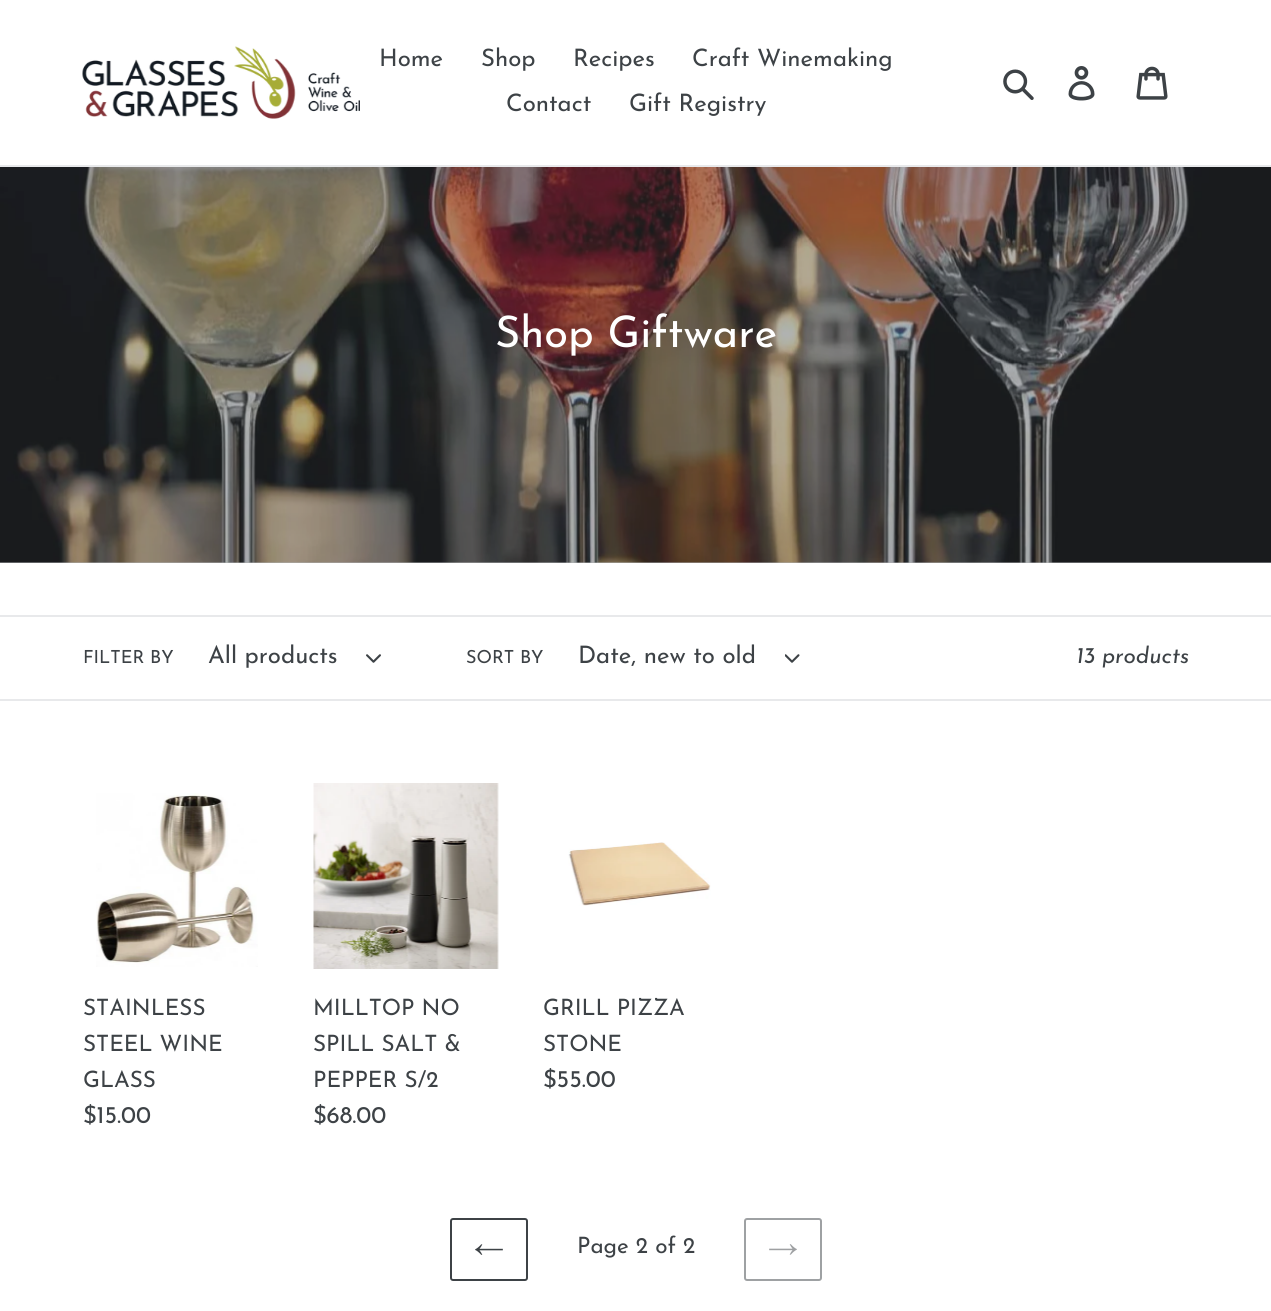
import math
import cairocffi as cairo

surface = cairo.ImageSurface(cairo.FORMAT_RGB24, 1271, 1311)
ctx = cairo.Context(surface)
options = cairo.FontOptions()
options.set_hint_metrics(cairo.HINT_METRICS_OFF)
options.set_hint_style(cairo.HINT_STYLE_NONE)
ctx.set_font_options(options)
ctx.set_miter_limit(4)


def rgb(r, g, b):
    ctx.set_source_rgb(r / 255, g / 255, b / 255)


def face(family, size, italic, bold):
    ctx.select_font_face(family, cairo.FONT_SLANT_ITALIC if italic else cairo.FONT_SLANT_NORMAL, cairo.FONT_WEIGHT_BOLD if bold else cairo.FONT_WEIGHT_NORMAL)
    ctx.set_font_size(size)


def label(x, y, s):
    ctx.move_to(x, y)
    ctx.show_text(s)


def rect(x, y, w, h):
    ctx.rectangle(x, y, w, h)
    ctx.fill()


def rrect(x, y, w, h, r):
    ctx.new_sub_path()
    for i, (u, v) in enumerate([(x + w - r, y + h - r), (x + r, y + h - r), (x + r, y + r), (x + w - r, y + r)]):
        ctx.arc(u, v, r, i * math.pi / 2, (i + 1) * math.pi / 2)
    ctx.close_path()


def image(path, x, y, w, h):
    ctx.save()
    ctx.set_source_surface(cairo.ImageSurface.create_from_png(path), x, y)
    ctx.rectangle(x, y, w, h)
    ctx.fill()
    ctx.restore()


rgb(255, 255, 255)
ctx.paint()
rgb(177, 179, 181)
rect(0, 562, 1271, 1)
rgb(232, 233, 235)
rect(0, 165, 1271, 2)
image('image0.png', 82, 46, 278, 73)
face('Josefin Sans', 24, 0, 0)
rgb(61, 66, 70)
label(379, 66, 'Home')
label(481, 66, 'Shop')
label(573, 66, 'Recipes')
label(692, 66, 'Craft Winemaking')
label(506, 111, 'Contact')
label(629, 111, 'Gift Registry')
image('image1.png', 1003, 69, 31, 31)
image('image2.png', 1068, 66, 27, 35)
image('image3.png', 1136, 66, 32, 34)
image('image4.png', 0, 167, 1271, 396)
face('Josefin Sans', 43.5, 0, 0)
rgb(255, 255, 255)
label(495, 347, 'Shop Giftware')
rgb(232, 233, 235)
rect(0, 615, 1271, 2)
rect(0, 699, 1271, 2)
face('Josefin Sans', 18, 0, 0)
rgb(61, 66, 70)
label(83, 663, 'FILTER BY')
face('Josefin Sans', 24, 0, 0)
label(208, 663, 'All products')
image('image5.png', 366, 654, 15, 9)
face('Josefin Sans', 18, 0, 0)
label(466, 663, 'SORT BY')
face('Josefin Sans', 24, 0, 0)
label(578, 663, 'Date, new to old')
image('image6.png', 785, 654, 15, 9)
face('Josefin Sans', 22.5, 1, 0)
label(1076, 663, '13 products')
image('image7.png', 96, 793, 162, 174)
face('Josefin Sans', 22.5, 0, 0)
label(83, 1015, 'STAINLESS')
label(83, 1051, 'STEEL WINE')
label(83, 1087, 'GLASS')
face('Josefin Sans', 24, 0, 0)
label(83, 1123, '$15.00')
image('image8.png', 313, 783, 186, 186)
face('Josefin Sans', 22.5, 0, 0)
label(313, 1015, 'MILLTOP NO')
label(313, 1051, 'SPILL SALT &')
label(313, 1087, 'PEPPER S/2')
face('Josefin Sans', 24, 0, 0)
label(313, 1123, '$68.00')
image('image9.png', 568, 842, 143, 64)
face('Josefin Sans', 22.5, 0, 0)
label(543, 1015, 'GRILL PIZZA')
label(543, 1051, 'STONE')
face('Josefin Sans', 24, 0, 0)
label(543, 1087, '$55.00')
rrect(451, 1219, 76, 61, 2)
ctx.stroke()
image('image10.png', 475, 1244, 28, 11)
face('Josefin Sans', 22.5, 0, 0)
label(577, 1253, 'Page 2 of 2')
rrect(745, 1219, 76, 61, 2)
rgb(158, 161, 163)
ctx.stroke()
image('image11.png', 769, 1244, 28, 11)
surface.write_to_png('render.png')
